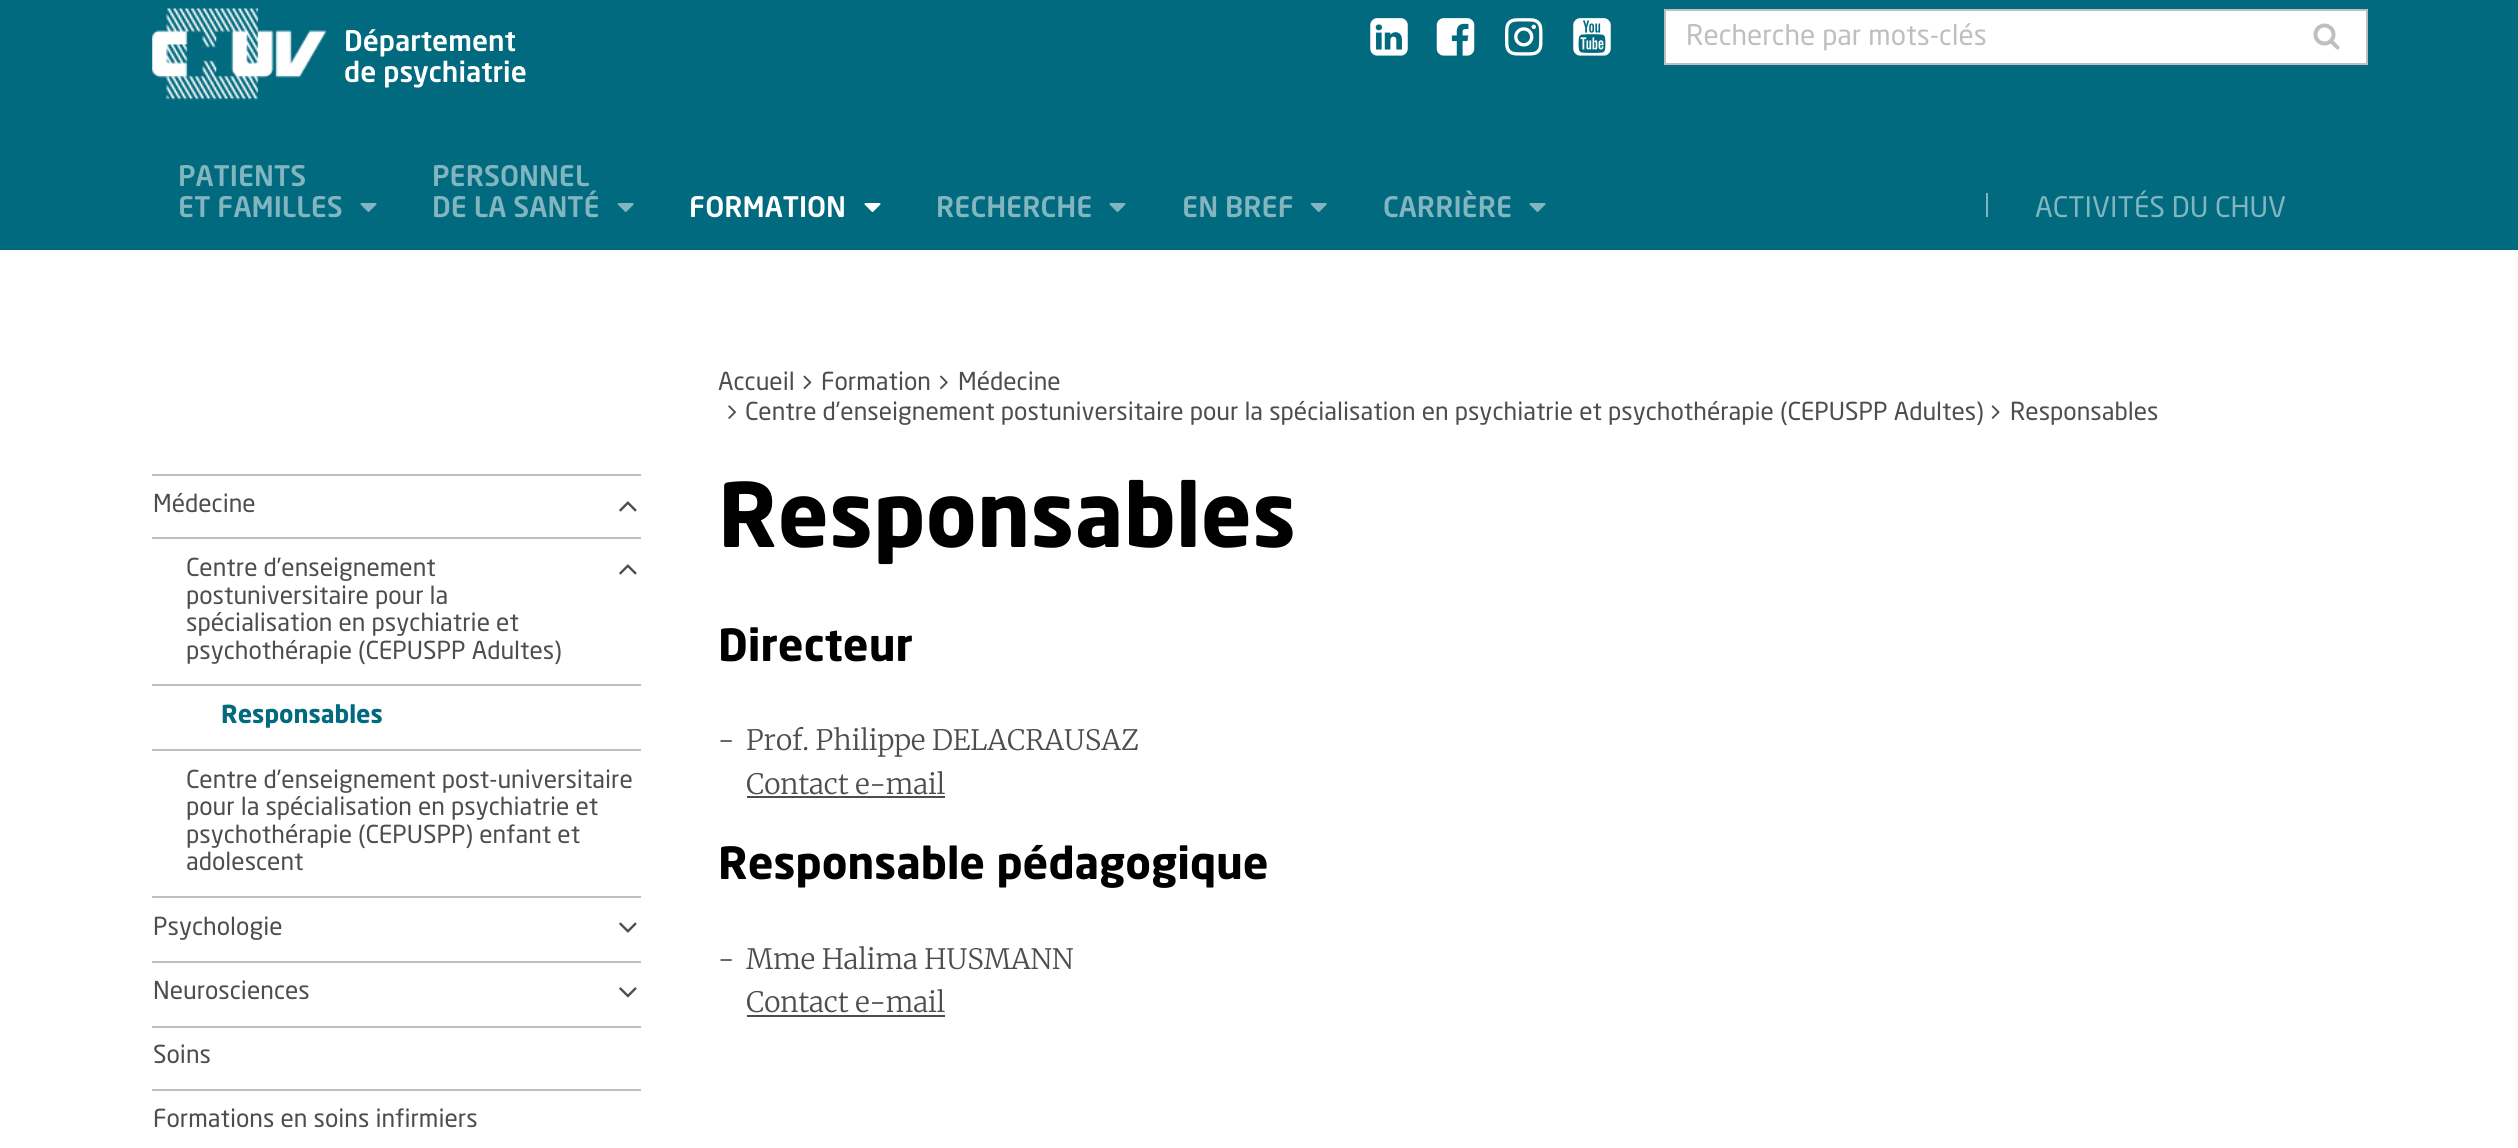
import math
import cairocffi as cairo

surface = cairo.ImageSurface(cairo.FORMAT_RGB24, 2518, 1148)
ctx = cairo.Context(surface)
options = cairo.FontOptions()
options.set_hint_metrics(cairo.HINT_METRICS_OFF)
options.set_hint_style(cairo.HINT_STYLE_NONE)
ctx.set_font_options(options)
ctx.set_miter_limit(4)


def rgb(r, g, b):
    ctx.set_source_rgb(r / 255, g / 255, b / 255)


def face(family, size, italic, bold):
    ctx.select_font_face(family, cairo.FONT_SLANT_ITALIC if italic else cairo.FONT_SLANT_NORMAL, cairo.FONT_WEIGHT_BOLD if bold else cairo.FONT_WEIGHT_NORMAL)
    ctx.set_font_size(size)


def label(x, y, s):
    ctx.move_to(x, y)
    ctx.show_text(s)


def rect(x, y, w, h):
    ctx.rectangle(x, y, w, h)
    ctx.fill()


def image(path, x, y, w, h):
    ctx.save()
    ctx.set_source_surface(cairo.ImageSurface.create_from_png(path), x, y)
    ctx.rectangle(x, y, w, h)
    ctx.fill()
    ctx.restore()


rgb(255, 255, 255)
ctx.paint()
rgb(2, 106, 126)
rect(0, 0, 2518, 250)
image('image0.png', 152, 8, 175, 92)
face('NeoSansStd', 28, 0, 0)
rgb(255, 255, 255)
label(344, 51, 'Département')
label(344, 82, 'de psychiatrie')
image('image1.png', 1370, 18, 38, 38)
image('image2.png', 1436, 18, 39, 38)
image('image3.png', 1505, 18, 38, 38)
image('image4.png', 1573, 18, 38, 38)
rect(1666, 11, 700, 52)
rgb(191, 191, 191)
rect(1664, 9, 704, 2)
rect(2366, 9, 2, 56)
rect(1664, 63, 704, 2)
image('image5.png', 2313, 23, 27, 27)
rect(1664, 9, 2, 56)
face('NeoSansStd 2', 28, 0, 0)
label(1686, 45, 'Recherche par mots-clés')
face('NeoSansStd', 28, 0, 0)
rgb(129, 181, 191)
label(178, 186, 'PATIENTS')
label(178, 217, 'ET FAMILLES')
image('image6.png', 360, 203, 17, 9)
label(432, 186, 'PERSONNEL')
label(432, 217, 'DE LA SANTÉ')
image('image7.png', 617, 203, 17, 9)
rgb(255, 255, 255)
label(689, 217, 'FORMATION')
image('image8.png', 864, 203, 17, 9)
rgb(129, 181, 191)
label(936, 217, 'RECHERCHE')
image('image6.png', 1109, 203, 17, 9)
label(1182, 217, 'EN BREF')
image('image7.png', 1310, 203, 17, 9)
label(1383, 217, 'CARRIÈRE')
image('image6.png', 1529, 203, 17, 9)
rect(1986, 193, 2, 24)
face('NeoSansStd 2', 28, 0, 0)
label(2035, 217, 'ACTIVITÉS DU CHUV')
face('NeoSansStd 2', 24.5, 0, 0)
rgb(77, 77, 77)
label(718, 390, 'Accueil')
image('image9.png', 803, 375, 9, 15)
label(821, 390, 'Formation')
image('image10.png', 940, 375, 8, 15)
label(958, 390, 'Médecine')
image('image11.png', 728, 405, 9, 14)
label(745, 420, 'Centre d’enseignement postuniversitaire pour la spécialisation en psychiatrie et psychothérapie (CEPUSPP Adultes)')
image('image12.png', 1991, 405, 9, 14)
label(2010, 420, 'Responsables')
rgb(191, 191, 191)
rect(152, 474, 489, 2)
rgb(77, 77, 77)
label(153, 512, 'Médecine')
image('image13.png', 619, 501, 18, 11)
rgb(191, 191, 191)
rect(152, 537, 489, 2)
rgb(77, 77, 77)
label(186, 576, 'Centre d’enseignement')
label(186, 604, 'postuniversitaire pour la')
label(186, 631, 'spécialisation en psychiatrie et')
label(186, 659, 'psychothérapie (CEPUSPP Adultes)')
image('image14.png', 619, 564, 18, 11)
rgb(191, 191, 191)
rect(152, 684, 489, 2)
face('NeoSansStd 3', 24.5, 0, 0)
rgb(2, 106, 126)
label(221, 723, 'Responsables')
rgb(191, 191, 191)
rect(152, 749, 489, 2)
face('NeoSansStd 2', 24.5, 0, 0)
rgb(77, 77, 77)
label(186, 788, 'Centre d’enseignement post-universitaire')
label(186, 815, 'pour la spécialisation en psychiatrie et')
label(186, 843, 'psychothérapie (CEPUSPP) enfant et')
label(186, 870, 'adolescent')
rgb(191, 191, 191)
rect(152, 896, 489, 2)
rgb(77, 77, 77)
label(153, 935, 'Psychologie')
image('image15.png', 619, 922, 18, 11)
rgb(191, 191, 191)
rect(152, 961, 489, 2)
rgb(77, 77, 77)
label(153, 999, 'Neurosciences')
image('image16.png', 619, 987, 18, 11)
rgb(191, 191, 191)
rect(152, 1026, 489, 2)
rgb(77, 77, 77)
label(153, 1063, 'Soins')
rgb(191, 191, 191)
rect(152, 1089, 489, 2)
rgb(77, 77, 77)
label(153, 1127, 'Formations en soins infirmiers')
face('NeoSansStd 3', 87.5, 0, 0)
rgb(0, 0, 0)
label(718, 547, 'Responsables')
face('NeoSansStd 3', 43.75, 0, 0)
label(718, 661, 'Directeur')
face('Merriweather Light', 28, 0, 0)
rgb(77, 77, 77)
label(718, 750, '-')
label(746, 750, 'Prof. Philippe DELACRAUSAZ')
label(746, 794, 'Contact e-mail')
rect(747, 796, 198, 2)
face('NeoSansStd 3', 43.75, 0, 0)
rgb(0, 0, 0)
label(718, 879, 'Responsable pédagogique')
face('Merriweather Light', 28, 0, 0)
rgb(77, 77, 77)
label(718, 969, '-')
label(746, 969, 'Mme Halima HUSMANN')
label(746, 1012, 'Contact e-mail')
rect(747, 1015, 198, 2)
surface.write_to_png('render.png')
